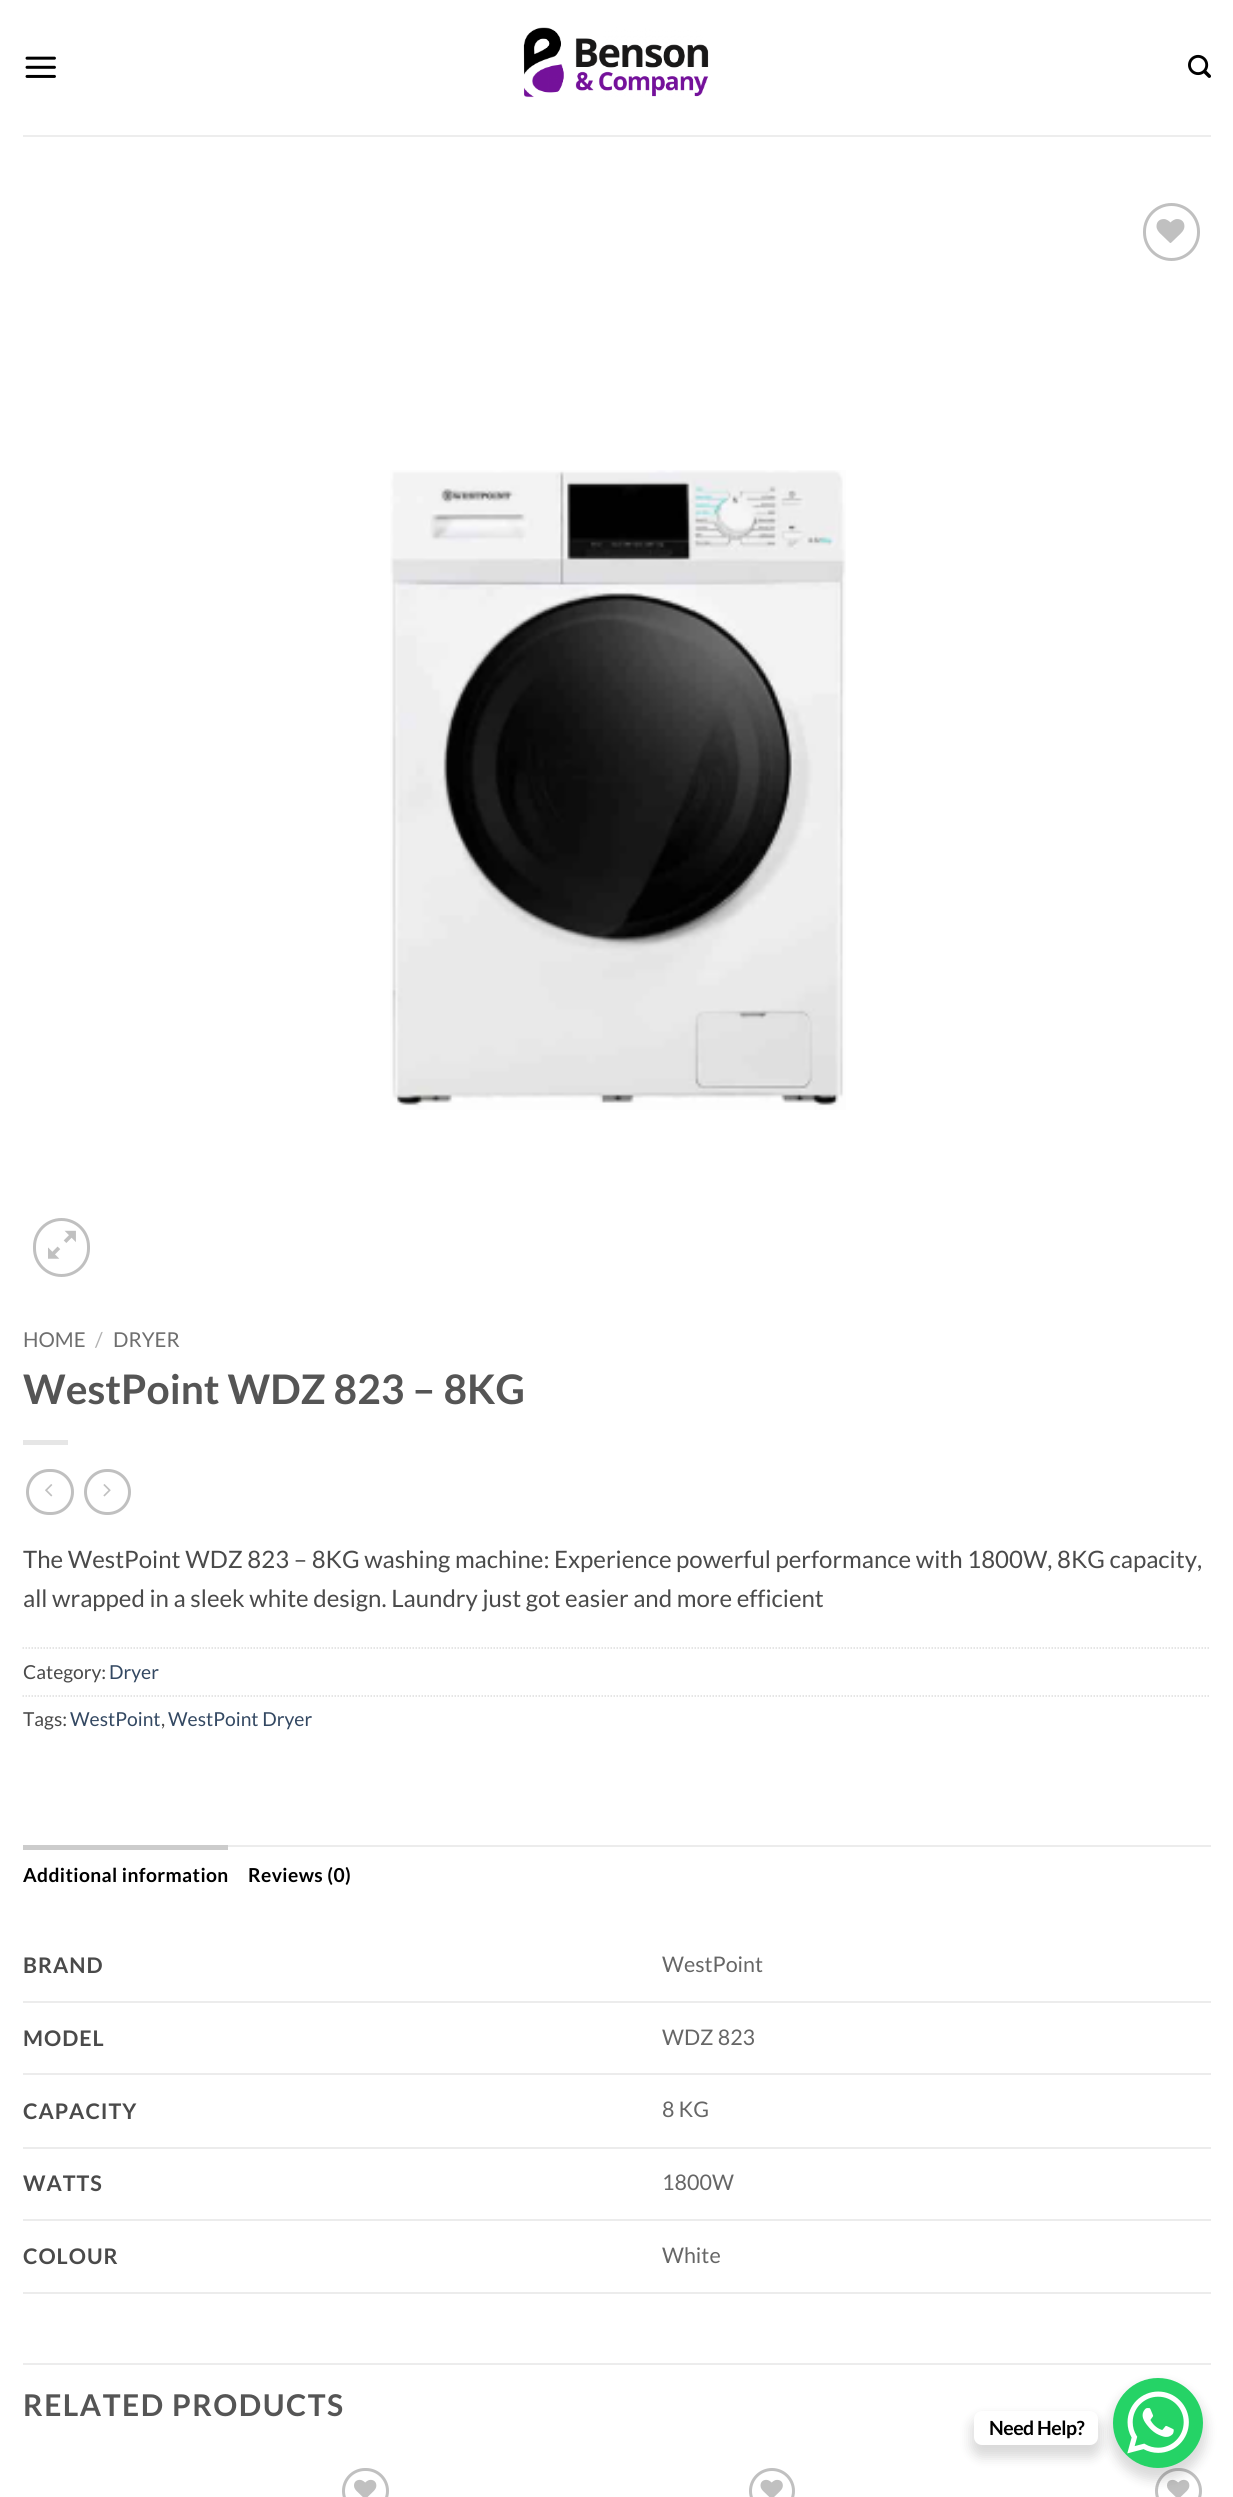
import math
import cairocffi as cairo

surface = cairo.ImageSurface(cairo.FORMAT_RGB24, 1233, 2497)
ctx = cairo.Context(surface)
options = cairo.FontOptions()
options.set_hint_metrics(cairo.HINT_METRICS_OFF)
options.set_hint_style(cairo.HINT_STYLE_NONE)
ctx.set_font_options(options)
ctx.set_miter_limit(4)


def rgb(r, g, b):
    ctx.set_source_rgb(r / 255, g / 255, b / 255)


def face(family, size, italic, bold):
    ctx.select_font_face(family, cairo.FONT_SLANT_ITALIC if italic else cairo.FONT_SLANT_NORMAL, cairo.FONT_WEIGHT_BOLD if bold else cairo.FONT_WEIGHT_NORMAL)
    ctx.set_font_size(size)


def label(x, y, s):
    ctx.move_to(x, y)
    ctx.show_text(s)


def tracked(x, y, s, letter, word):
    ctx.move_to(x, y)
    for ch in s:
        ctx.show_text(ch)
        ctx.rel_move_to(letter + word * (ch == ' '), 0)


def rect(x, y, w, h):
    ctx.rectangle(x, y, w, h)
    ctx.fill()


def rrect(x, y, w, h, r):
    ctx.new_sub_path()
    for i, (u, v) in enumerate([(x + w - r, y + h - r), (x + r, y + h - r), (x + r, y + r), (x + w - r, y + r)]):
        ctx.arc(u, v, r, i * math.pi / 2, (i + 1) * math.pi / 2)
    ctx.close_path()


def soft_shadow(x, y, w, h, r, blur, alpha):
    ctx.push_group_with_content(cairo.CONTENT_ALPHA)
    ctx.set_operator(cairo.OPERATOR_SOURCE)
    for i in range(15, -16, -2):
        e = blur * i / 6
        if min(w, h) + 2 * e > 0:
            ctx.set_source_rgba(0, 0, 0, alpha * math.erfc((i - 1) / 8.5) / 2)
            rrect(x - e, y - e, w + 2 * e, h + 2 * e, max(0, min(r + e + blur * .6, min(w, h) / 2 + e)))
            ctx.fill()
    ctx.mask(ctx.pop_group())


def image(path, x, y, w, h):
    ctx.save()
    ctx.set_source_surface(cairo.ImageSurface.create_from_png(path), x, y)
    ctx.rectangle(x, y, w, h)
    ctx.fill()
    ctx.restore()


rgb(255, 255, 255)
ctx.paint()
image('image0.png', 25, 56, 31, 22)
image('image1.png', 523, 27, 186, 71)
image('image2.png', 1188, 54, 23, 24)
rgb(237, 237, 237)
rect(23, 135, 1188, 2)
rrect(1144.5, 204.5, 54, 55, 27)
rgb(192, 192, 192)
ctx.set_line_width(3)
ctx.stroke()
image('image3.png', 1156, 219, 29, 24)
image('image4.png', 390, 470, 456, 640)
rrect(34.5, 1219.5, 54, 56, 27)
ctx.stroke()
image('image5.png', 48, 1230, 28, 29)
face('Lato', 20.5, 0, 0)
rgb(110, 110, 110)
label(23, 1347, 'HOME')
rgb(178, 178, 178)
label(95, 1347, '/')
rgb(110, 110, 110)
label(113, 1347, 'DRYER')
face('Lato', 40.75, 0, 1)
rgb(85, 85, 85)
label(23, 1404, 'WestPoint WDZ 823 – 8KG')
rgb(230, 230, 230)
rect(23, 1440, 45, 5)
rrect(27.5, 1470.5, 45, 43, 21.5)
rgb(192, 192, 192)
ctx.stroke()
image('image6.png', 45, 1484, 8, 13)
rrect(85.5, 1470.5, 44, 43, 21.5)
ctx.stroke()
image('image7.png', 103, 1484, 8, 13)
face('Lato', 24, 0, 0)
rgb(74, 74, 74)
label(23, 1568, 'The WestPoint WDZ 823 – 8KG washing machine: Experience powerful performance with 1800W, 8KG capacity,')
label(23, 1607, 'all wrapped in a sleek white design. Laundry just got easier and more efficient')
ctx.new_path()
ctx.move_to(22.5, 1648)
ctx.line_to(1210.5, 1648)
rgb(221, 221, 221)
ctx.set_line_width(1.5)
ctx.set_dash([1.5, 1.5])
ctx.stroke()
face('Lato', 19.25, 0, 0)
rgb(74, 74, 74)
label(23, 1679, 'Category:')
rgb(51, 72, 98)
label(109, 1679, 'Dryer')
ctx.new_path()
ctx.move_to(22.5, 1696)
ctx.line_to(1210.5, 1696)
rgb(221, 221, 221)
ctx.stroke()
rgb(74, 74, 74)
label(23, 1726, 'Tags:')
rgb(51, 72, 98)
label(70, 1726, 'WestPoint')
rgb(74, 74, 74)
label(161, 1726, ',')
rgb(51, 72, 98)
label(168, 1726, 'WestPoint Dryer')
rgb(236, 236, 236)
rect(228, 1845, 983, 2)
rgb(204, 204, 204)
rect(23, 1845, 205, 5)
face('Lato', 19.25, 0, 1)
rgb(0, 0, 0)
tracked(23, 1882, 'Additional information', 0.4, 0)
tracked(248, 1882, 'Reviews (0)', 0.4, 0)
rgb(236, 236, 236)
rect(23, 2001, 1188, 2)
face('Lato', 21.5, 0, 1)
rgb(74, 74, 74)
tracked(23, 1973, 'BRAND', 1, 0)
face('Lato', 21.5, 0, 0)
rgb(102, 102, 102)
label(662, 1972, 'WestPoint')
rgb(236, 236, 236)
rect(23, 2073, 1188, 2)
face('Lato', 21.5, 0, 1)
rgb(74, 74, 74)
tracked(23, 2046, 'MODEL', 1, 0)
face('Lato', 21.5, 0, 0)
rgb(102, 102, 102)
label(662, 2045, 'WDZ 823')
rgb(236, 236, 236)
rect(23, 2147, 1188, 2)
face('Lato', 21.5, 0, 1)
rgb(74, 74, 74)
tracked(23, 2119, 'CAPACITY', 1, 0)
face('Lato', 21.5, 0, 0)
rgb(102, 102, 102)
label(662, 2117, '8 KG')
rgb(236, 236, 236)
rect(23, 2219, 1188, 2)
face('Lato', 21.5, 0, 1)
rgb(74, 74, 74)
tracked(23, 2191, 'WATTS', 1, 0)
face('Lato', 21.5, 0, 0)
rgb(102, 102, 102)
label(662, 2190, '1800W')
rgb(236, 236, 236)
rect(23, 2292, 1188, 2)
face('Lato', 21.5, 0, 1)
rgb(74, 74, 74)
tracked(23, 2264, 'COLOUR', 1, 0)
face('Lato', 21.5, 0, 0)
rgb(102, 102, 102)
label(662, 2263, 'White')
rgb(236, 236, 236)
rect(23, 2363, 1188, 2)
face('Lato', 30, 0, 1)
rgb(85, 85, 85)
tracked(23, 2416, 'RELATED PRODUCTS', 1.5, 0)
rrect(343.5, 2469.5, 44, 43, 21.5)
rgb(192, 192, 192)
ctx.set_line_width(3)
ctx.set_dash([])
ctx.stroke()
image('image8.png', 354, 2479, 23, 18)
ctx.arc(772, 2491, 21.5, 0, 2 * math.pi)
ctx.stroke()
image('image9.png', 760, 2479, 23, 18)
rrect(1156.5, 2469.5, 44, 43, 21.5)
ctx.stroke()
image('image8.png', 1167, 2479, 23, 18)
rgb(0, 0, 0)
soft_shadow(1110, 2384, 96, 96, 48, 6, 0.15)
rgb(37, 211, 102)
ctx.arc(1158, 2423, 45, 0, 2 * math.pi)
ctx.fill()
rgb(0, 0, 0)
soft_shadow(971, 2417, 130, 40, 11, 6, 0.15)
rgb(255, 255, 255)
rrect(974, 2411, 124, 34, 8)
ctx.fill()
face('Lato', 19.5, 0, 1)
rgb(0, 0, 0)
tracked(989, 2435, 'Need Help?', -0.5, 0)
image('image10.png', 1127, 2391, 62, 63)
surface.write_to_png('render.png')
